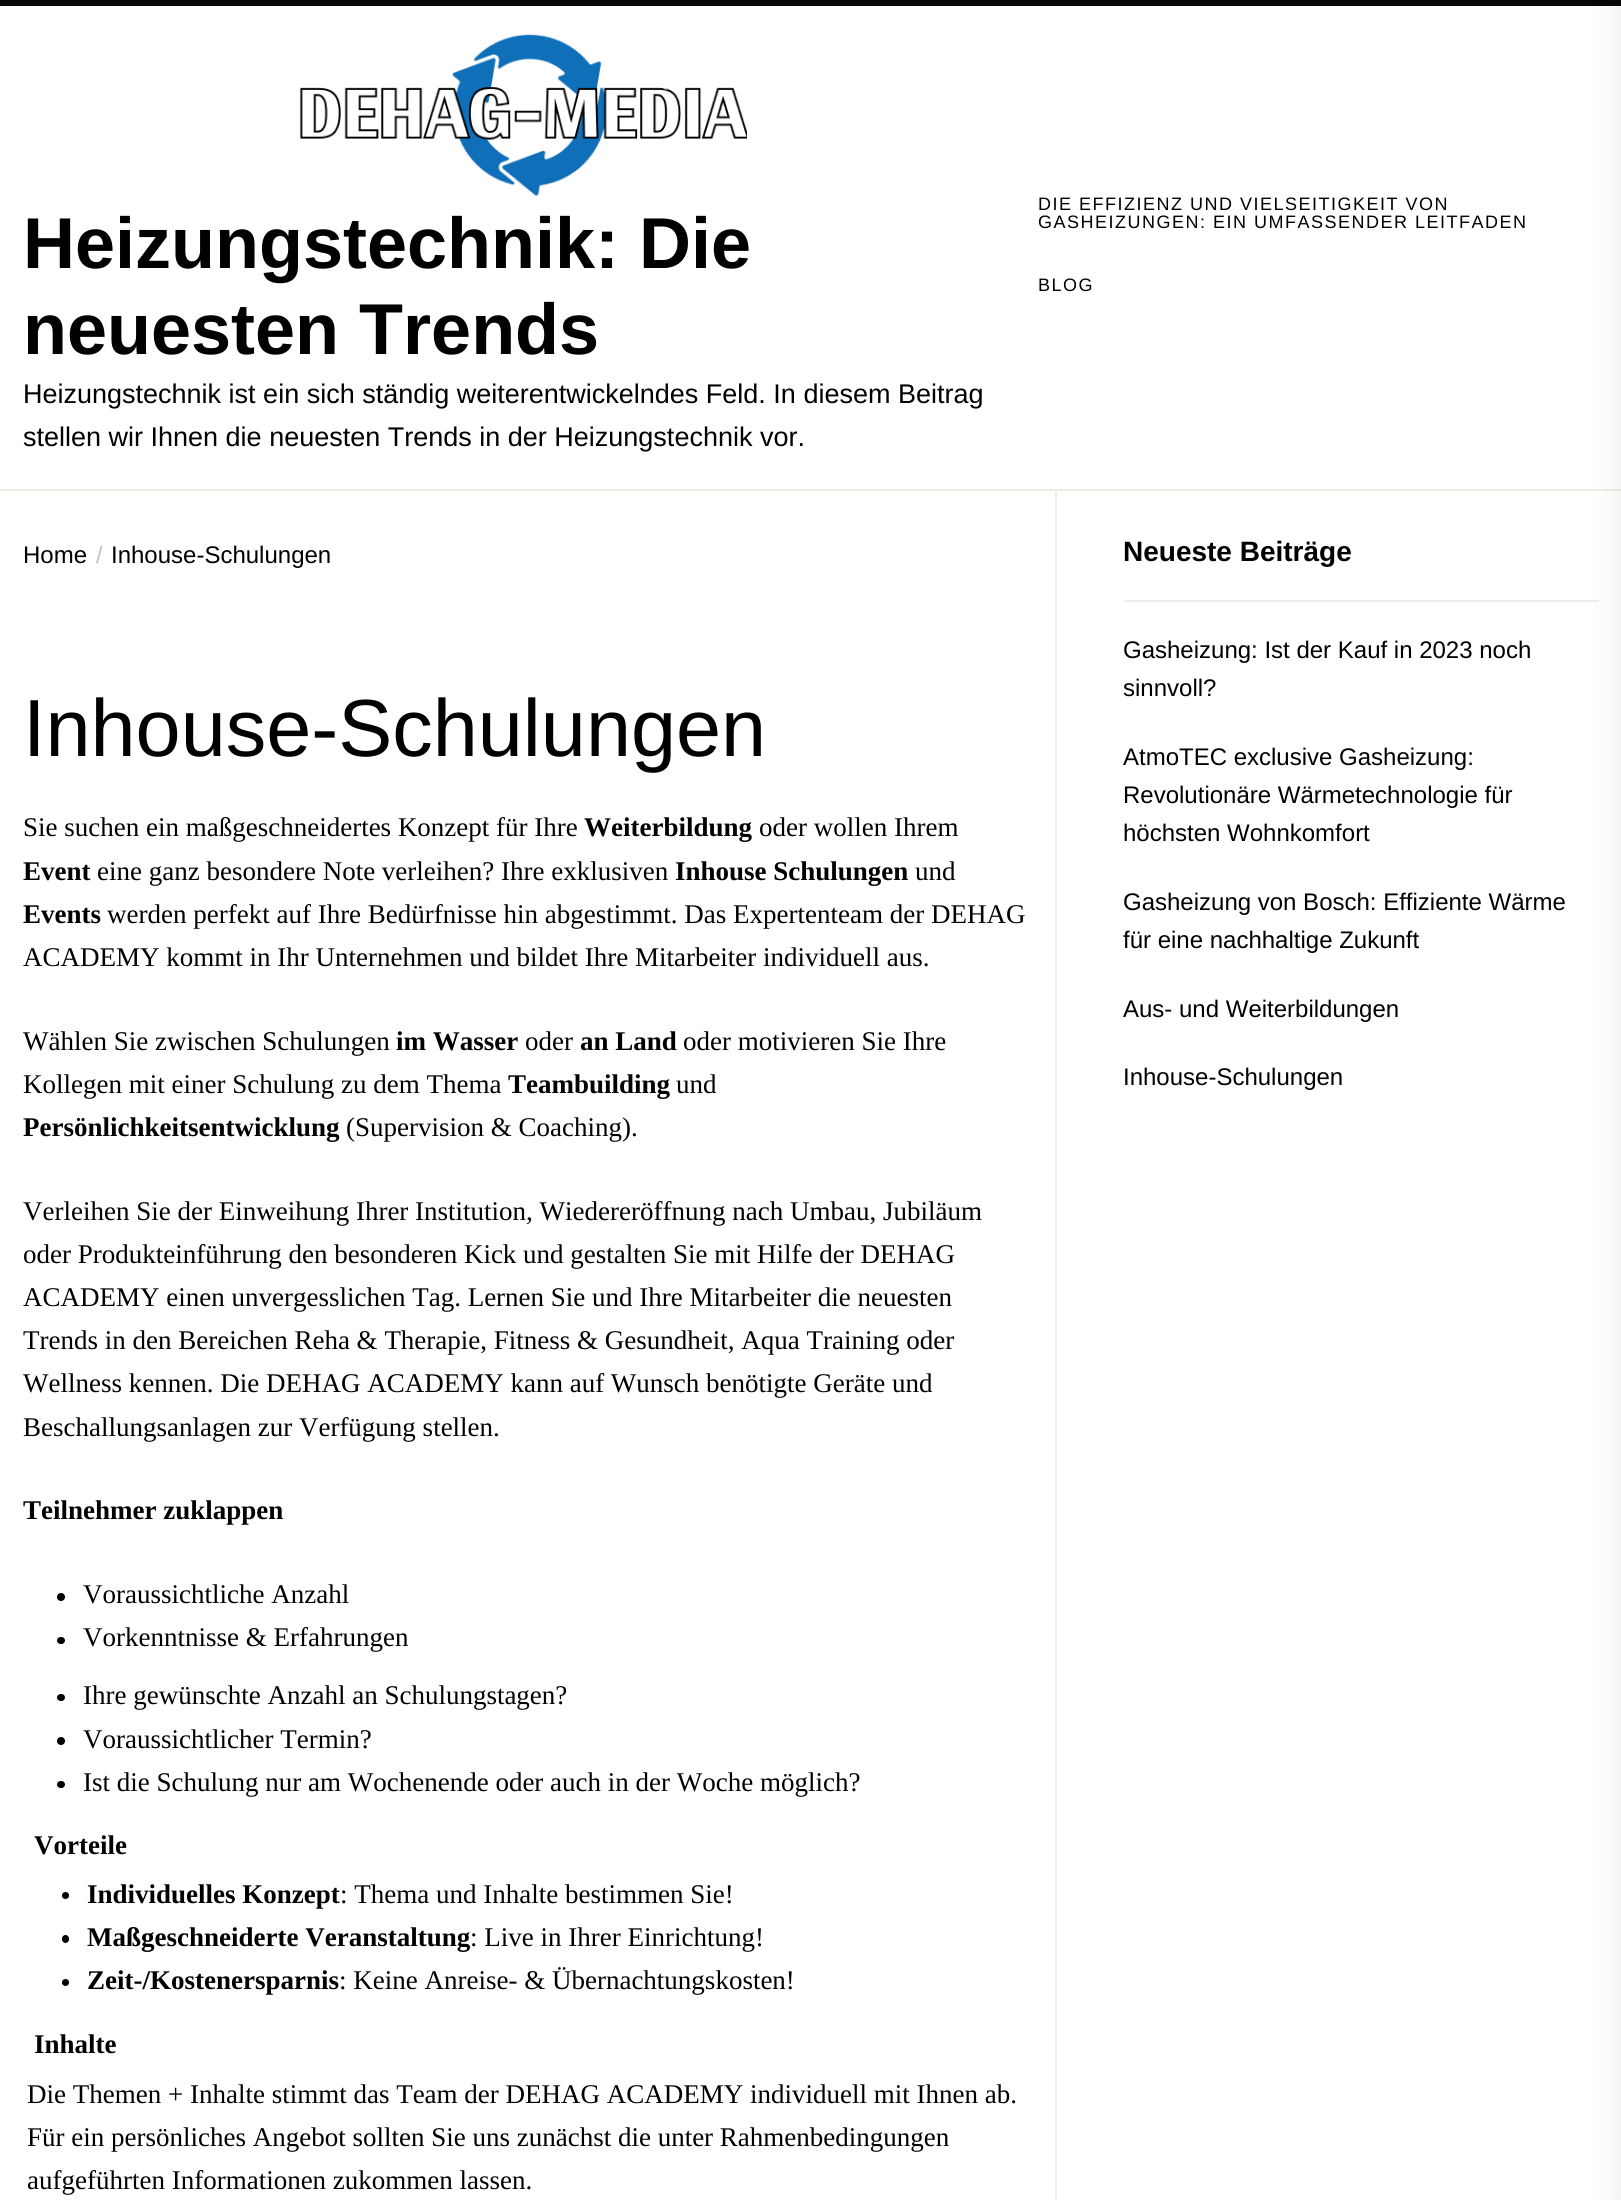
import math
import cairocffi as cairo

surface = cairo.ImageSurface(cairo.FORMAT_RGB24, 1621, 2200)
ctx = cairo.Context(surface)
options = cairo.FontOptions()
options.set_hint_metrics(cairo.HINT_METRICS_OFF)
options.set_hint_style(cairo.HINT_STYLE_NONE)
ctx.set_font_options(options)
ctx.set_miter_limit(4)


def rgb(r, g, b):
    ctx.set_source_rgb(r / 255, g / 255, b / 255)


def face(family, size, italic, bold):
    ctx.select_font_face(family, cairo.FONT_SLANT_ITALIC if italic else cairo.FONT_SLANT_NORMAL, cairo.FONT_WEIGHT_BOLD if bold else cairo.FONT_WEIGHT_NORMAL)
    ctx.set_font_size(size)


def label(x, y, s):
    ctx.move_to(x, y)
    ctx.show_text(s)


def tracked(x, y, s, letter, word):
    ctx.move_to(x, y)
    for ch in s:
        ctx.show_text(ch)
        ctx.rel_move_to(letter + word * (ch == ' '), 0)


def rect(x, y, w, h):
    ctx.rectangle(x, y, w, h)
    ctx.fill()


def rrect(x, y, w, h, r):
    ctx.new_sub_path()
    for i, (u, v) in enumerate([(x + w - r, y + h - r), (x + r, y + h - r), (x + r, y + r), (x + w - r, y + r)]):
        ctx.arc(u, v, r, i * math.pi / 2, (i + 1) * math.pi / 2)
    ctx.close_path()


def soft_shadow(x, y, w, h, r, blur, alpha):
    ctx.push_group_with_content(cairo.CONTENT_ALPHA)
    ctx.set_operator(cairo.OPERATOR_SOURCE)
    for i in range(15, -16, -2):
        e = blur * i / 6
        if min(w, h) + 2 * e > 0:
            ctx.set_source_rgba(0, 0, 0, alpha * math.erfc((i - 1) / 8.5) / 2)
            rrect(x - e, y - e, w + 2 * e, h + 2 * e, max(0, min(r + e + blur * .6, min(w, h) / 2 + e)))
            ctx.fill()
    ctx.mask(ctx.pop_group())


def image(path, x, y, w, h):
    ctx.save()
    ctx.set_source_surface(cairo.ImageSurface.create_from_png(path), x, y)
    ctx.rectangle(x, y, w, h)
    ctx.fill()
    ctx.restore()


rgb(255, 255, 255)
ctx.paint()
rgb(7, 7, 7)
rect(0, 0, 1621, 6)
rgb(239, 236, 226)
rect(0, 489, 1621, 2)
image('image0.png', 299, 34, 448, 162)
face('Liberation Sans', 72, 0, 1)
rgb(0, 0, 0)
label(23, 268, 'Heizungstechnik: Die')
label(23, 354, 'neuesten Trends')
face('Liberation Sans', 27, 0, 0)
label(23, 403, 'Heizungstechnik ist ein sich ständig weiterentwickelndes Feld. In diesem Beitrag')
label(23, 446, 'stellen wir Ihnen die neuesten Trends in der Heizungstechnik vor.')
face('Liberation Sans', 18, 0, 0)
tracked(1038, 210, 'DIE EFFIZIENZ UND VIELSEITIGKEIT VON', 1.5, 0)
tracked(1038, 228, 'GASHEIZUNGEN: EIN UMFASSENDER LEITFADEN', 1.5, 0)
tracked(1038, 291, 'BLOG', 1.5, 0)
face('Liberation Sans', 24, 0, 0)
label(23, 563, 'Home')
rgb(194, 194, 194)
label(96, 563, '/')
rgb(0, 0, 0)
label(111, 563, 'Inhouse-Schulungen')
face('Liberation Sans', 81, 0, 0)
label(23, 756, 'Inhouse-Schulungen')
face('Liberation Serif', 27, 0, 0)
label(23, 836, 'Sie suchen ein maßgeschneidertes Konzept für Ihre')
face('Liberation Serif', 27, 0, 1)
label(584, 836, 'Weiterbildung')
face('Liberation Serif', 27, 0, 0)
label(759, 836, 'oder wollen Ihrem')
face('Liberation Serif', 27, 0, 1)
label(23, 880, 'Event')
face('Liberation Serif', 27, 0, 0)
label(97, 880, 'eine ganz besondere Note verleihen? Ihre exklusiven')
face('Liberation Serif', 27, 0, 1)
label(675, 880, 'Inhouse Schulungen')
face('Liberation Serif', 27, 0, 0)
label(915, 880, 'und')
face('Liberation Serif', 27, 0, 1)
label(23, 923, 'Events')
face('Liberation Serif', 27, 0, 0)
label(107, 923, 'werden perfekt auf Ihre Bedürfnisse hin abgestimmt. Das Expertenteam der DEHAG')
label(23, 966, 'ACADEMY kommt in Ihr Unternehmen und bildet Ihre Mitarbeiter individuell aus.')
label(23, 1050, 'Wählen Sie zwischen Schulungen')
face('Liberation Serif', 27, 0, 1)
label(396, 1050, 'im Wasser')
face('Liberation Serif', 27, 0, 0)
label(525, 1050, 'oder')
face('Liberation Serif', 27, 0, 1)
label(580, 1050, 'an Land')
face('Liberation Serif', 27, 0, 0)
label(683, 1050, 'oder motivieren Sie Ihre')
label(23, 1093, 'Kollegen mit einer Schulung zu dem Thema')
face('Liberation Serif', 27, 0, 1)
label(508, 1093, 'Teambuilding')
face('Liberation Serif', 27, 0, 0)
label(676, 1093, 'und')
face('Liberation Serif', 27, 0, 1)
label(23, 1136, 'Persönlichkeitsentwicklung')
face('Liberation Serif', 27, 0, 0)
label(346, 1136, '(Supervision & Coaching).')
label(23, 1220, 'Verleihen Sie der Einweihung Ihrer Institution, Wiedereröffnung nach Umbau, Jubiläum')
label(23, 1263, 'oder Produkteinführung den besonderen Kick und gestalten Sie mit Hilfe der DEHAG')
label(23, 1306, 'ACADEMY einen unvergesslichen Tag. Lernen Sie und Ihre Mitarbeiter die neuesten')
label(23, 1349, 'Trends in den Bereichen Reha & Therapie, Fitness & Gesundheit, Aqua Training oder')
label(23, 1392, 'Wellness kennen. Die DEHAG ACADEMY kann auf Wunsch benötigte Geräte und')
label(23, 1436, 'Beschallungsanlagen zur Verfügung stellen.')
face('Liberation Serif', 27, 0, 1)
label(23, 1519, 'Teilnehmer zuklappen')
ctx.new_path()
ctx.arc(61, 1597, 4, 0, 2 * math.pi)
ctx.fill()
face('Liberation Serif', 27, 0, 0)
label(83, 1603, 'Voraussichtliche Anzahl')
rrect(57, 1637, 8, 7, 3.5)
ctx.fill()
label(83, 1646, 'Vorkenntnisse & Erfahrungen')
rrect(57, 1694, 8, 7, 3.5)
ctx.fill()
label(83, 1704, 'Ihre gewünschte Anzahl an Schulungstagen?')
ctx.new_path()
ctx.arc(61, 1741, 4, 0, 2 * math.pi)
ctx.fill()
label(83, 1748, 'Voraussichtlicher Termin?')
rrect(57, 1781, 8, 7, 3.5)
ctx.fill()
label(83, 1791, 'Ist die Schulung nur am Wochenende oder auch in der Woche möglich?')
face('Liberation Serif', 27, 0, 1)
label(34, 1854, 'Vorteile')
ctx.new_path()
ctx.arc(65.5, 1895.5, 3.5, 0, 2 * math.pi)
ctx.fill()
label(87, 1903, 'Individuelles Konzept')
face('Liberation Serif', 27, 0, 0)
label(340, 1903, ': Thema und Inhalte bestimmen Sie!')
rrect(62, 1935, 7, 8, 3.5)
ctx.fill()
face('Liberation Serif', 27, 0, 1)
label(87, 1946, 'Maßgeschneiderte Veranstaltung')
face('Liberation Serif', 27, 0, 0)
label(470, 1946, ': Live in Ihrer Einrichtung!')
ctx.new_path()
ctx.arc(65.5, 1982.5, 3.5, 0, 2 * math.pi)
ctx.fill()
face('Liberation Serif', 27, 0, 1)
label(87, 1989, 'Zeit-/Kostenersparnis')
face('Liberation Serif', 27, 0, 0)
label(339, 1989, ': Keine Anreise- & Übernachtungskosten!')
face('Liberation Serif', 27, 0, 1)
label(34, 2053, 'Inhalte')
face('Liberation Serif', 27, 0, 0)
label(27, 2103, 'Die Themen + Inhalte stimmt das Team der DEHAG ACADEMY individuell mit Ihnen ab.')
label(27, 2146, 'Für ein persönliches Angebot sollten Sie uns zunächst die unter Rahmenbedingungen')
label(27, 2189, 'aufgeführten Informationen zukommen lassen.')
rgb(237, 237, 237)
rect(1055, 491, 2, 1709)
rect(1124, 600, 475, 2)
face('Liberation Sans', 28, 0, 1)
rgb(0, 0, 0)
label(1123, 561, 'Neueste Beiträge')
face('Liberation Sans', 24, 0, 0)
label(1123, 658, 'Gasheizung: Ist der Kauf in 2023 noch')
label(1123, 696, 'sinnvoll?')
label(1123, 765, 'AtmoTEC exclusive Gasheizung:')
label(1123, 803, 'Revolutionäre Wärmetechnologie für')
label(1123, 841, 'höchsten Wohnkomfort')
label(1123, 910, 'Gasheizung von Bosch: Effiziente Wärme')
label(1123, 948, 'für eine nachhaltige Zukunft')
label(1123, 1017, 'Aus- und Weiterbildungen')
label(1123, 1085, 'Inhouse-Schulungen')
rgb(0, 0, 0)
soft_shadow(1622, 0, 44, 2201, 0, 15, 0.1)
surface.write_to_png('render.png')
